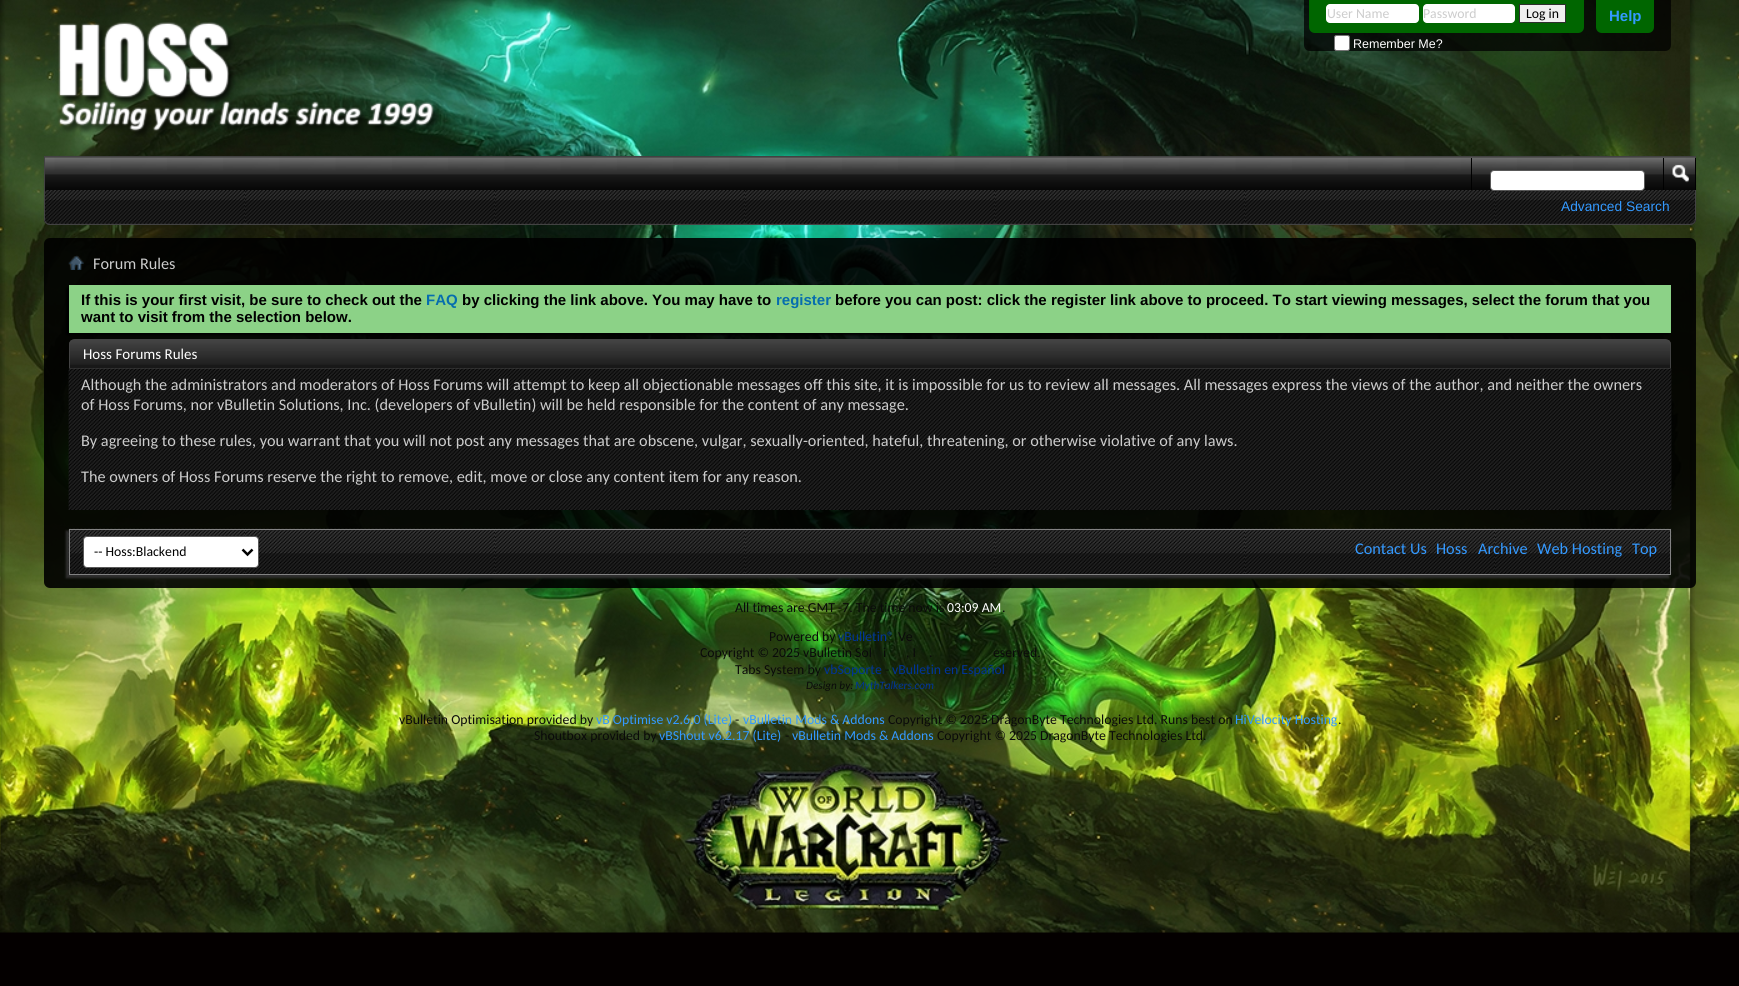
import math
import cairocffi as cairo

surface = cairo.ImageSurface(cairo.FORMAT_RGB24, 1739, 986)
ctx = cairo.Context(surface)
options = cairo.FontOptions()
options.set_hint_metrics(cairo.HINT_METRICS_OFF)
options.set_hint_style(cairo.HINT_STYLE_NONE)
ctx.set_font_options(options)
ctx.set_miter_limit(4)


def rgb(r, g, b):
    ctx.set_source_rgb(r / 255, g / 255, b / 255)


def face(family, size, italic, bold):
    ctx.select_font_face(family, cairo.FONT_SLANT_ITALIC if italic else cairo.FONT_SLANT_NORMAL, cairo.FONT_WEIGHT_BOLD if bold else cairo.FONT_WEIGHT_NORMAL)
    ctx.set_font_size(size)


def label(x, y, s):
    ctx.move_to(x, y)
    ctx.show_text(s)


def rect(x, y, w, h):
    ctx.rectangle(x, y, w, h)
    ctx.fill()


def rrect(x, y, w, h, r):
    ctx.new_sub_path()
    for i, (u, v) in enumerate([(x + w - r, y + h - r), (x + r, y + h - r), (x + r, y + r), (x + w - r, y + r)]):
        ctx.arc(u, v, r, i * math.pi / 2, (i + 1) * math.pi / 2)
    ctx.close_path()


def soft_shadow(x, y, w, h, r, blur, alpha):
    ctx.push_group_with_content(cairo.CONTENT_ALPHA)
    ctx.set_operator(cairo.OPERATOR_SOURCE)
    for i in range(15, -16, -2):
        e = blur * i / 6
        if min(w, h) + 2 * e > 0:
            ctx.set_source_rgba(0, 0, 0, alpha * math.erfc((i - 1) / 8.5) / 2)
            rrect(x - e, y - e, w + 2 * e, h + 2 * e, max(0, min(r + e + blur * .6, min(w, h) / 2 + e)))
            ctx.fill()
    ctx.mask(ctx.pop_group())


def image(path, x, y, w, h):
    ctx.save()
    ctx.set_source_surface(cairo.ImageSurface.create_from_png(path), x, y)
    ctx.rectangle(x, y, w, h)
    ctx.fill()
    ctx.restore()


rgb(4, 0, 0)
ctx.paint()
image('image0.png', 0, 0, 1739, 933)
image('image1.png', 58, 22, 381, 115)
ctx.set_source_rgba(0, 0, 0, 0.75)
ctx.new_path()
ctx.move_to(1304, 0)
ctx.line_to(1671, 0)
ctx.line_to(1671, 45)
ctx.curve_to(1671, 48.5, 1668.5, 51, 1665, 51)
ctx.line_to(1310, 51)
ctx.curve_to(1306.5, 51, 1304, 48.5, 1304, 45)
ctx.close_path()
ctx.fill()
rgb(0, 102, 0)
ctx.new_path()
ctx.move_to(1309, 0)
ctx.line_to(1584, 0)
ctx.line_to(1584, 27)
ctx.curve_to(1584, 30.5, 1581.5, 33, 1578, 33)
ctx.line_to(1315, 33)
ctx.curve_to(1311.5, 33, 1309, 30.5, 1309, 27)
ctx.close_path()
ctx.fill()
rgb(255, 255, 255)
rrect(1326, 4, 93, 19, 4)
ctx.fill()
face('Carlito', 13.75, 0, 0)
rgb(204, 204, 204)
label(1327, 18, 'User Name')
rgb(255, 255, 255)
rrect(1423, 4, 92, 19, 4)
ctx.fill()
rgb(204, 204, 204)
label(1423, 18, 'Password')
rgb(239, 239, 239)
ctx.rectangle(1519.5, 4.5, 46, 18)
ctx.fill_preserve()
rgb(46, 46, 46)
ctx.set_line_width(1)
ctx.stroke()
rgb(0, 0, 0)
label(1526, 18, 'Log in')
rgb(255, 255, 255)
rrect(1334.5, 35.5, 15, 15, 2)
ctx.fill_preserve()
rgb(118, 118, 118)
ctx.stroke()
face('Liberation Sans', 12.5, 0, 0)
rgb(255, 255, 255)
label(1353, 48, 'Remember Me?')
rgb(0, 102, 0)
ctx.new_path()
ctx.move_to(1596, 0)
ctx.line_to(1654, 0)
ctx.line_to(1654, 27)
ctx.curve_to(1654, 30.5, 1651.5, 33, 1648, 33)
ctx.line_to(1602, 33)
ctx.curve_to(1598.5, 33, 1596, 30.5, 1596, 27)
ctx.close_path()
ctx.fill()
face('Liberation Sans', 15, 0, 1)
rgb(51, 153, 255)
label(1609, 21, 'Help')
rgb(51, 51, 51)
ctx.new_path()
ctx.move_to(44, 156)
ctx.line_to(1696, 156)
ctx.line_to(1696, 219)
ctx.curve_to(1696, 222.5, 1693.5, 225, 1690, 225)
ctx.line_to(50, 225)
ctx.curve_to(46.5, 225, 44, 222.5, 44, 219)
ctx.close_path()
ctx.fill()
image('image2.png', 43, 174, 1654, 50)
ctx.new_path()
ctx.move_to(44.5, 156.5)
ctx.line_to(1695.5, 156.5)
ctx.line_to(1695.5, 219)
ctx.curve_to(1695.5, 222, 1693, 224.5, 1690, 224.5)
ctx.line_to(50, 224.5)
ctx.curve_to(47, 224.5, 44.5, 222, 44.5, 219)
ctx.close_path()
rgb(66, 66, 66)
ctx.stroke()
image('image3.png', 45, 157, 1650, 33)
rgb(0, 0, 0)
rect(1471, 158, 1, 32)
rgb(255, 255, 255)
rrect(1490.5, 170.5, 154, 20, 3.5)
ctx.fill_preserve()
rgb(88, 88, 88)
ctx.stroke()
rgb(0, 0, 0)
rect(1695, 158, 1, 32)
rect(1663, 158, 1, 32)
image('image4.png', 1672, 164, 17, 19)
face('Liberation Sans', 13.75, 0, 0)
rgb(51, 153, 255)
label(1561, 211, 'Advanced Search')
ctx.set_source_rgba(0, 0, 0, 0.9)
rrect(44, 238, 1652, 350, 6)
ctx.fill()
image('image5.png', 68, 255, 16, 15)
face('Carlito', 16.25, 0, 0)
rgb(204, 204, 204)
label(93, 269, 'Forum Rules')
rgb(0, 0, 0)
soft_shadow(66, 288, 1603, 47, 0, 1, 1)
rgb(140, 210, 135)
rect(69, 285, 1602, 48)
face('Liberation Sans', 15, 0, 1)
rgb(0, 0, 0)
label(81, 305, 'If this is your first visit, be sure to check out the')
rgb(6, 109, 174)
label(426, 305, 'FAQ')
rgb(0, 0, 0)
label(462, 305, 'by clicking the link above. You may have to')
rgb(6, 109, 174)
label(776, 305, 'register')
rgb(0, 0, 0)
label(835, 305, 'before you can post: click the register link above to proceed. To start viewing messages, select the forum that you')
label(81, 322, 'want to visit from the selection below.')
rgb(24, 24, 24)
ctx.new_path()
ctx.move_to(75, 339)
ctx.line_to(1665, 339)
ctx.curve_to(1668.5, 339, 1671, 341.5, 1671, 345)
ctx.line_to(1671, 369)
ctx.line_to(69, 369)
ctx.line_to(69, 345)
ctx.curve_to(69, 341.5, 71.5, 339, 75, 339)
ctx.close_path()
ctx.fill()
image('image6.png', 69, 340, 1602, 25)
ctx.new_path()
ctx.move_to(75, 339.5)
ctx.line_to(1665, 339.5)
ctx.curve_to(1668, 339.5, 1670.5, 342, 1670.5, 345)
ctx.line_to(1670.5, 368.5)
ctx.line_to(69.5, 368.5)
ctx.line_to(69.5, 345)
ctx.curve_to(69.5, 342, 72, 339.5, 75, 339.5)
ctx.close_path()
rgb(67, 67, 67)
ctx.stroke()
face('Carlito', 15, 0, 0)
rgb(255, 255, 255)
label(83, 359, 'Hoss Forums Rules')
image('image7.png', 68, 368, 1604, 142)
image('image8.png', 68, 368, 1604, 142)
face('Carlito', 16.25, 0, 0)
rgb(204, 204, 204)
label(81, 390, 'Although the administrators and moderators of Hoss Forums will attempt to keep all objectionable messages off this site, it is impossible for us to review all messages. All messages express the views of the author, and neither the owners')
label(81, 410, 'of Hoss Forums, nor vBulletin Solutions, Inc. (developers of vBulletin) will be held responsible for the content of any message.')
label(81, 446, 'By agreeing to these rules, you warrant that you will not post any messages that are obscene, vulgar, sexually-oriented, hateful, threatening, or otherwise violative of any laws.')
label(81, 482, 'The owners of Hoss Forums reserve the right to remove, edit, move or close any content item for any reason.')
rgb(46, 46, 46)
soft_shadow(66, 531, 1603, 47, 0, 1, 1)
image('image9.png', 68, 528, 1604, 47)
ctx.rectangle(69.5, 529.5, 1601, 45)
rgb(130, 130, 130)
ctx.stroke()
rgb(255, 255, 255)
rrect(83.5, 536.5, 175, 31, 3.5)
ctx.fill_preserve()
rgb(88, 88, 88)
ctx.stroke()
ctx.new_path()
ctx.move_to(242.5, 549.5)
ctx.line_to(247.5, 554.5)
ctx.line_to(252.5, 549.5)
rgb(0, 0, 0)
ctx.set_line_width(2.5)
ctx.stroke()
face('Carlito', 13.75, 0, 0)
label(94, 556, '-- Hoss:Blackend')
face('Carlito', 16.25, 0, 0)
rgb(51, 153, 255)
label(1355, 554, 'Contact Us')
label(1436, 554, 'Hoss')
label(1478, 554, 'Archive')
label(1537, 554, 'Web Hosting')
label(1632, 554, 'Top')
face('Carlito', 13.75, 0, 0)
rgb(10, 10, 10)
label(735, 612, 'All times are GMT -7. The time now is')
rgb(255, 255, 255)
label(947, 612, '03:09 AM')
rgb(10, 10, 10)
label(1002, 612, '.')
label(769, 641, 'Powered by')
rgb(0, 51, 153)
label(838, 641, 'vBulletin®')
rgb(10, 10, 10)
label(898, 641, 'Ve')
label(700, 657, 'Copyright © 2025 vBulletin Sol')
label(883, 657, 'i')
label(906, 657, ', I')
label(929, 657, '.')
label(993, 657, 'eserved.')
label(735, 674, 'Tabs System by')
rgb(0, 51, 153)
label(824, 674, 'vbSoporte')
rgb(10, 10, 10)
label(885, 674, '-')
rgb(0, 51, 153)
label(892, 674, 'vBulletin en Español')
face('Carlito', 11.25, 1, 0)
rgb(10, 10, 10)
label(806, 689, 'Design by:')
rgb(0, 51, 153)
label(855, 689, 'MythTalkers.com')
face('Carlito', 13.75, 0, 0)
rgb(10, 10, 10)
label(399, 724, 'vBulletin Optimisation provided by')
rgb(51, 153, 255)
label(596, 724, 'vB Optimise v2.6.0 (Lite)')
rgb(10, 10, 10)
label(735, 724, '-')
rgb(51, 153, 255)
label(743, 724, 'vBulletin Mods & Addons')
rgb(10, 10, 10)
label(888, 724, 'Copyright © 2025 DragonByte Technologies Ltd. Runs best on')
rgb(51, 153, 255)
label(1235, 724, 'HiVelocity Hosting')
rgb(10, 10, 10)
label(1338, 724, '.')
label(534, 740, 'Shoutbox provided by')
rgb(51, 153, 255)
label(659, 740, 'vBShout v6.2.17 (Lite)')
rgb(10, 10, 10)
label(785, 740, '-')
rgb(51, 153, 255)
label(792, 740, 'vBulletin Mods & Addons')
rgb(10, 10, 10)
label(937, 740, 'Copyright © 2025 DragonByte Technologies Ltd.')
surface.write_to_png('render.png')
